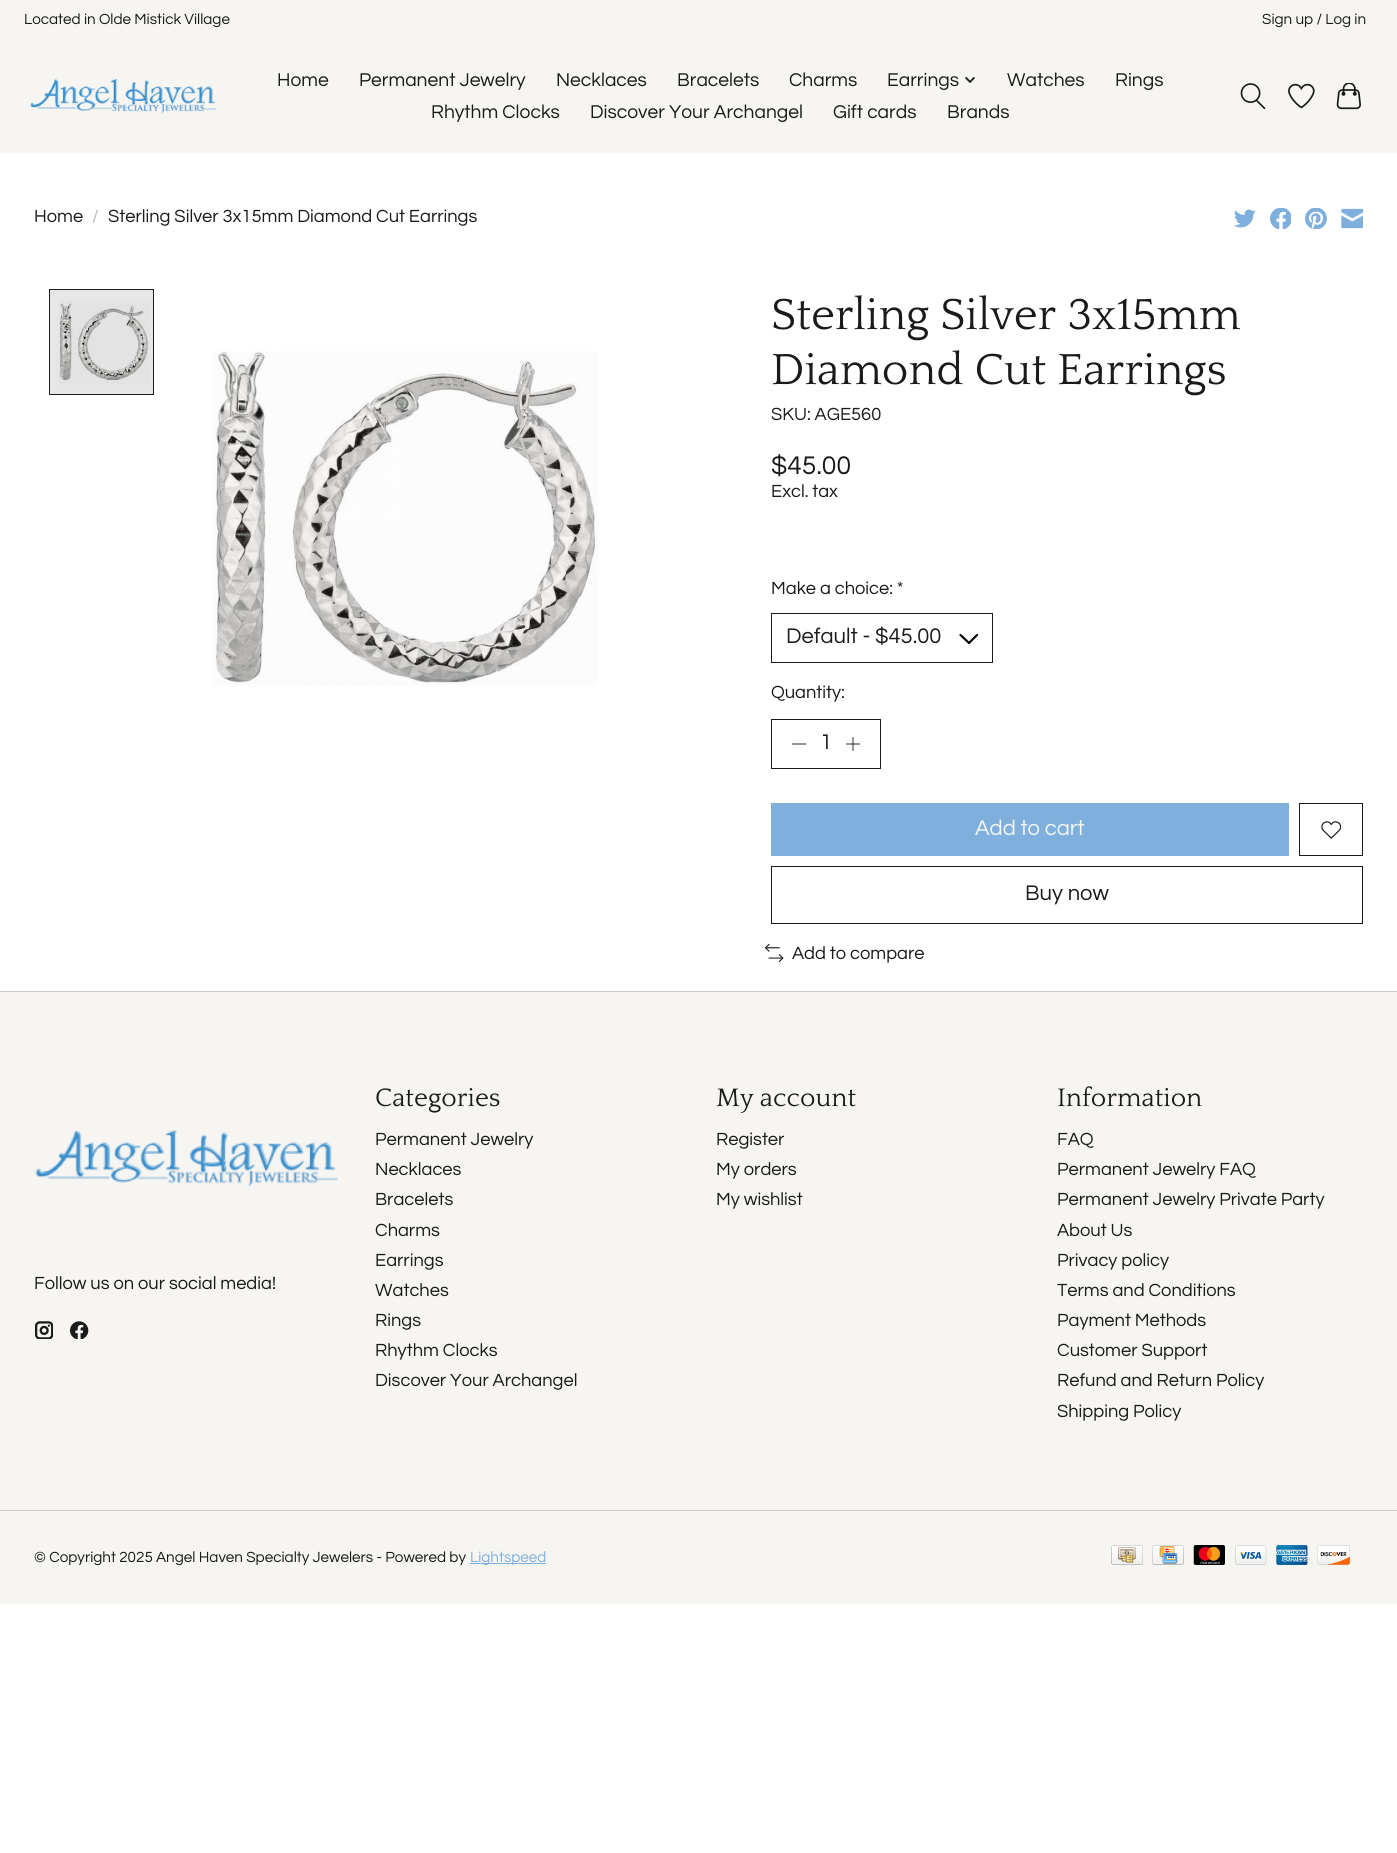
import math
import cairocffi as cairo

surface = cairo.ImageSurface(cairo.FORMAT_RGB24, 1397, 1853)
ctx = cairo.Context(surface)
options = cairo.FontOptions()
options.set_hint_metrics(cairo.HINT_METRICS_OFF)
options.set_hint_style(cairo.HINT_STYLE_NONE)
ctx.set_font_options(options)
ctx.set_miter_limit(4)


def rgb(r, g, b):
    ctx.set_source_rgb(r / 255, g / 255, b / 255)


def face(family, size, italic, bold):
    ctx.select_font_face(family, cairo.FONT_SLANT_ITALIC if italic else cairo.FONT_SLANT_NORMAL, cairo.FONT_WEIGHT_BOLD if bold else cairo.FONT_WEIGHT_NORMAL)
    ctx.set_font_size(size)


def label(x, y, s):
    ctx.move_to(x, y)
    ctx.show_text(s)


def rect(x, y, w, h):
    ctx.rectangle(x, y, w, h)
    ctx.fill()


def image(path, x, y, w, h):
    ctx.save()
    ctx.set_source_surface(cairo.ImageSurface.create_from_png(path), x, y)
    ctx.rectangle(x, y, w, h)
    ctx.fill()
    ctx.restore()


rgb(255, 255, 255)
ctx.paint()
rgb(230, 230, 230)
rect(50, 290, 103, 104)
rgb(246, 245, 242)
rect(0, 0, 1397, 153)
face('Questrial', 15.25, 0, 0)
rgb(26, 26, 26)
label(24, 24, 'Located in Olde Mistick Village')
label(1262, 24, 'Sign up / Log in')
image('image0.png', 30, 78, 187, 36)
face('Questrial', 19.25, 0, 0)
label(277, 86, 'Home')
label(359, 86, 'Permanent Jewelry')
label(556, 86, 'Necklaces')
label(677, 86, 'Bracelets')
label(789, 86, 'Charms')
label(887, 86, 'Earrings')
image('image1.png', 965, 76, 10, 7)
label(1007, 86, 'Watches')
label(1115, 86, 'Rings')
label(431, 118, 'Rhythm Clocks')
label(590, 118, 'Discover Your Archangel')
label(833, 118, 'Gift cards')
label(947, 118, 'Brands')
image('image2.png', 1240, 83, 26, 27)
image('image3.png', 1288, 83, 27, 26)
image('image4.png', 1336, 83, 25, 27)
face('Questrial', 18.3, 0, 0)
label(34, 222, 'Home')
rgb(186, 186, 186)
label(92, 222, '/')
rgb(26, 26, 26)
label(108, 222, 'Sterling Silver 3x15mm Diamond Cut Earrings')
image('image5.png', 1234, 209, 22, 19)
image('image6.png', 1270, 208, 21, 21)
image('image7.png', 1305, 208, 22, 21)
image('image8.png', 1341, 208, 22, 21)
image('image9.png', 59, 300, 91, 85)
ctx.rectangle(49.5, 289.5, 104, 105)
ctx.set_line_width(1)
ctx.stroke()
image('image10.png', 212, 351, 386, 335)
face('Quattrocento', 45.6, 0, 0)
label(771, 329, 'Sterling Silver 3x15mm')
label(771, 384, 'Diamond Cut Earrings')
face('Questrial', 18.3, 0, 0)
label(771, 420, 'SKU: AGE560')
face('Questrial', 26.5, 0, 0)
label(771, 474, '$45.00')
face('Questrial', 18.3, 0, 0)
label(771, 497, 'Excl. tax')
label(771, 594, 'Make a choice: *')
ctx.new_path()
ctx.move_to(977, 635)
ctx.line_to(969, 643)
ctx.line_to(960.5, 635)
rgb(0, 0, 0)
ctx.set_line_width(2.2)
ctx.set_line_cap(cairo.LINE_CAP_ROUND)
ctx.set_line_join(cairo.LINE_JOIN_ROUND)
ctx.stroke()
ctx.rectangle(771.5, 613.5, 221, 49)
rgb(26, 26, 26)
ctx.set_line_width(1)
ctx.set_line_cap(cairo.LINE_CAP_BUTT)
ctx.set_line_join(cairo.LINE_JOIN_MITER)
ctx.stroke()
face('Questrial', 22, 0, 0)
rgb(28, 28, 33)
label(786, 643, 'Default - $45.00')
face('Questrial', 18.3, 0, 0)
rgb(26, 26, 26)
label(771, 698, 'Quantity:')
ctx.rectangle(771.5, 719.5, 109, 49)
ctx.stroke()
ctx.new_path()
ctx.move_to(792.5, 744)
ctx.line_to(806, 744)
ctx.set_line_width(0.9)
ctx.set_line_cap(cairo.LINE_CAP_ROUND)
ctx.set_line_join(cairo.LINE_JOIN_ROUND)
ctx.stroke()
face('Questrial', 22, 0, 0)
rgb(28, 28, 33)
label(820, 749, '1')
ctx.new_path()
ctx.move_to(853, 737.5)
ctx.line_to(853, 750.5)
ctx.move_to(846.5, 744)
ctx.line_to(859.5, 744)
rgb(26, 26, 26)
ctx.stroke()
rgb(127, 176, 221)
rect(771, 803, 518, 53)
rgb(246, 245, 242)
label(975, 835, 'Add to cart')
ctx.rectangle(1299.5, 803.5, 63, 52)
rgb(26, 26, 26)
ctx.set_line_width(1)
ctx.set_line_cap(cairo.LINE_CAP_BUTT)
ctx.set_line_join(cairo.LINE_JOIN_MITER)
ctx.stroke()
image('image11.png', 1321, 821, 20, 18)
ctx.rectangle(771.5, 866.5, 591, 57)
ctx.stroke()
label(1025, 900, 'Buy now')
image('image12.png', 765, 944, 19, 18)
face('Questrial', 18.3, 0, 0)
label(792, 959, 'Add to compare')
rgb(246, 245, 242)
rect(0, 992, 1397, 612)
rgb(202, 201, 199)
rect(0, 991, 1397, 1)
face('Quattrocento', 26.5, 0, 0)
rgb(26, 26, 26)
label(375, 1106, 'Categories')
face('Questrial', 18.3, 0, 0)
label(375, 1145, 'Permanent Jewelry')
label(375, 1175, 'Necklaces')
label(375, 1205, 'Bracelets')
label(375, 1236, 'Charms')
label(375, 1266, 'Earrings')
label(375, 1296, 'Watches')
label(375, 1326, 'Rings')
label(375, 1356, 'Rhythm Clocks')
label(375, 1386, 'Discover Your Archangel')
face('Quattrocento', 26.5, 0, 0)
label(716, 1106, 'My account')
face('Questrial', 18.3, 0, 0)
label(716, 1145, 'Register')
label(716, 1175, 'My orders')
label(716, 1205, 'My wishlist')
face('Quattrocento', 26.5, 0, 0)
label(1057, 1106, 'Information')
face('Questrial', 18.3, 0, 0)
label(1057, 1145, 'FAQ')
label(1057, 1175, 'Permanent Jewelry FAQ')
label(1057, 1205, 'Permanent Jewelry Private Party')
label(1057, 1236, 'About Us')
label(1057, 1266, 'Privacy policy')
label(1057, 1296, 'Terms and Conditions')
label(1057, 1326, 'Payment Methods')
label(1057, 1356, 'Customer Support')
label(1057, 1386, 'Refund and Return Policy')
label(1057, 1417, 'Shipping Policy')
image('image13.png', 35, 1130, 303, 57)
label(34, 1289, 'Follow us on our social media!')
image('image14.png', 35, 1321, 18, 18)
image('image15.png', 70, 1321, 19, 18)
rgb(202, 201, 199)
rect(0, 1510, 1397, 1)
face('Questrial', 15.25, 0, 0)
rgb(26, 26, 26)
label(34, 1562, '© Copyright 2025 Angel Haven Specialty Jewelers - Powered by')
rgb(127, 176, 221)
rect(470, 1563, 76, 1)
label(470, 1562, 'Lightspeed')
image('image16.png', 1111, 1545, 32, 20)
image('image17.png', 1152, 1545, 32, 20)
image('image18.png', 1193, 1545, 32, 20)
image('image19.png', 1235, 1545, 32, 20)
image('image20.png', 1276, 1545, 32, 20)
image('image21.png', 1317, 1545, 33, 20)
surface.write_to_png('render.png')
